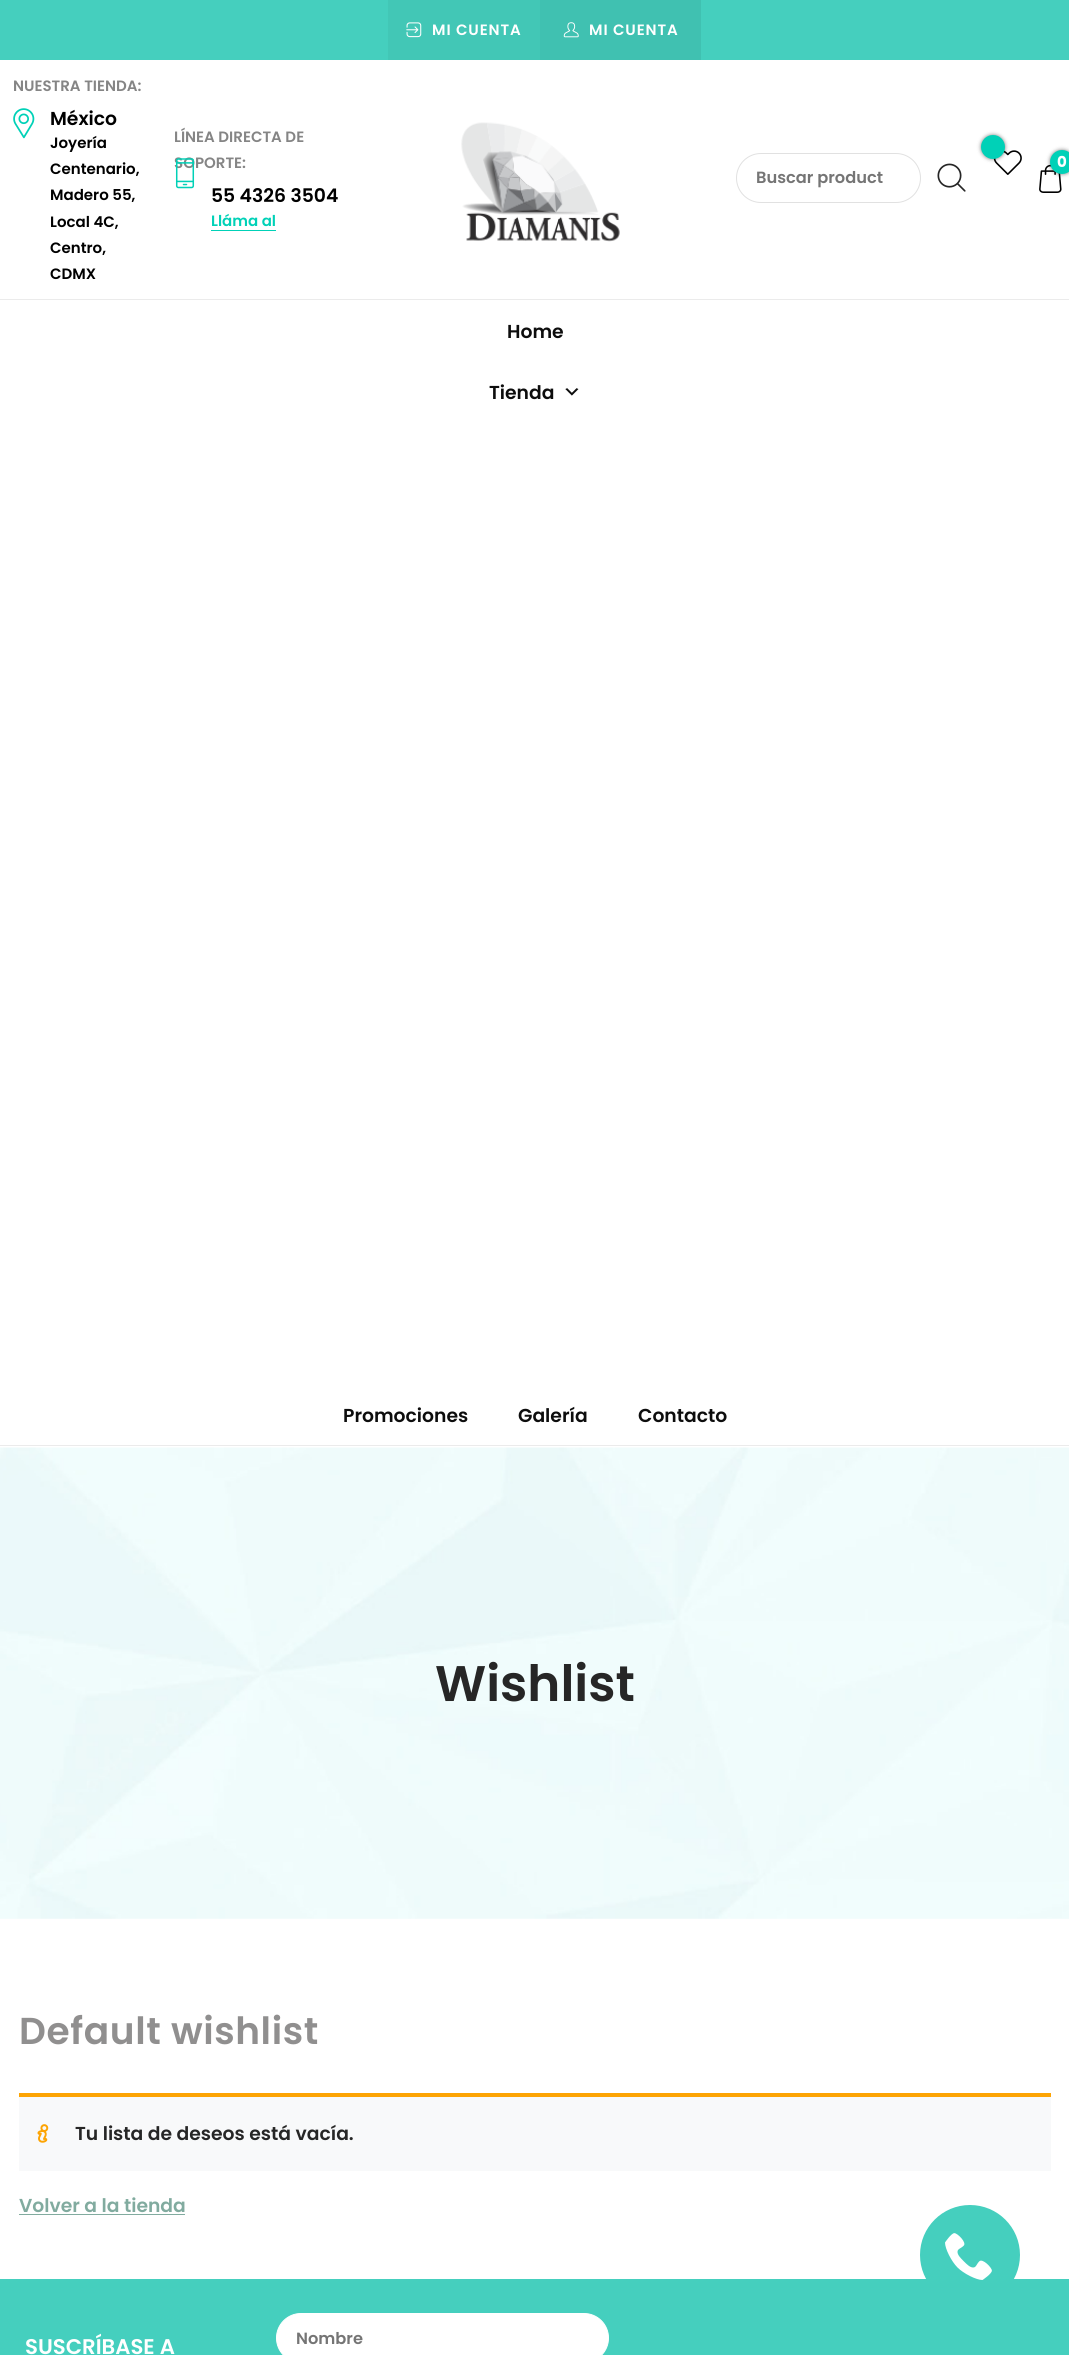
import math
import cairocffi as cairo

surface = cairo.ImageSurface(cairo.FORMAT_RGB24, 1069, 2355)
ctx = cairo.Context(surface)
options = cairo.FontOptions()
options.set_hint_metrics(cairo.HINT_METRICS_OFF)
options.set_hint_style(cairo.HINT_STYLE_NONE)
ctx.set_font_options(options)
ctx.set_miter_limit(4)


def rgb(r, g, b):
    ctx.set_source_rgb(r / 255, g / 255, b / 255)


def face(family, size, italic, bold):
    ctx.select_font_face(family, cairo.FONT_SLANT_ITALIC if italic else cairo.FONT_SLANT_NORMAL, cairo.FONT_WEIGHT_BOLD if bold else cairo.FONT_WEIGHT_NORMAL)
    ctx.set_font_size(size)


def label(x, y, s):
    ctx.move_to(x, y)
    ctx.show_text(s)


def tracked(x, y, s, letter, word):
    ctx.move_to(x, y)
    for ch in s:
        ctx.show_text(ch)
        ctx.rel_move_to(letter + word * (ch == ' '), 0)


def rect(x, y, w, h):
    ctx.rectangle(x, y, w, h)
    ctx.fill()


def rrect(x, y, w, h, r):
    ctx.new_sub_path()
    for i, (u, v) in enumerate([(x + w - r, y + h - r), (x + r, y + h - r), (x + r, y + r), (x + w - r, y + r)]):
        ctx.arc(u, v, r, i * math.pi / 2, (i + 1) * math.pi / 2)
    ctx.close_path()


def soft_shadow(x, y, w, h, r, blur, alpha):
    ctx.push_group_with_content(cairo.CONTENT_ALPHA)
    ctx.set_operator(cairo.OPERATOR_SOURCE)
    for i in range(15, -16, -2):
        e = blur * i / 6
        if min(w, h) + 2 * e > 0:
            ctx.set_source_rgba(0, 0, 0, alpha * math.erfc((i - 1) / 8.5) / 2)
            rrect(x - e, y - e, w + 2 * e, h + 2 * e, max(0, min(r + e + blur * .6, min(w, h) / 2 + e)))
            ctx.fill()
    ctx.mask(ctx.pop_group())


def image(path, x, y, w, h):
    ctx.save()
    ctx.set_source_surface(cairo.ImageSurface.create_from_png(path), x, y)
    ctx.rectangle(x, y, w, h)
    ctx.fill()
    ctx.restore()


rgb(255, 255, 255)
ctx.paint()
rgb(69, 207, 190)
rect(0, 0, 1069, 60)
rgb(66, 199, 182)
rect(388, 0, 152, 60)
image('image0.png', 406, 22, 16, 16)
face('Poppins SemiBold', 15, 0, 0)
rgb(255, 255, 255)
tracked(432, 35, 'MI CUENTA', 0.9, 0)
rgb(64, 193, 177)
rect(540, 0, 161, 60)
image('image1.png', 563, 22, 16, 16)
rgb(255, 255, 255)
tracked(589, 35, 'MI CUENTA', 0.9, 0)
rgb(133, 133, 133)
label(13, 91, 'NUESTRA TIENDA:')
image('image2.png', 13, 108, 22, 31)
face('Poppins SemiBold', 18.75, 0, 0)
rgb(0, 0, 0)
label(50, 125, 'México')
face('Poppins SemiBold', 15, 0, 0)
label(50, 148, 'Joyería')
label(50, 174, 'Centenario,')
label(50, 200, 'Madero 55,')
label(50, 227, 'Local 4C,')
label(50, 253, 'Centro,')
label(50, 279, 'CDMX')
rgb(133, 133, 133)
label(174, 142, 'LÍNEA DIRECTA DE')
label(174, 168, 'SOPORTE:')
image('image3.png', 175, 158, 20, 31)
face('Poppins SemiBold', 18.75, 0, 0)
rgb(0, 0, 0)
label(211, 202, '55 4326 3504')
face('Poppins SemiBold', 15, 0, 0)
rgb(0, 209, 183)
label(211, 226, 'Lláma al')
rect(211, 230, 65, 1)
image('image4.png', 461, 122, 159, 120)
image('image5.png', 993, 150, 29, 25)
rgb(0, 0, 0)
soft_shadow(981, 135, 24, 24, 12, 2, 0.5)
rgb(0, 209, 183)
ctx.arc(993, 147, 12, 0, 2 * math.pi)
ctx.fill()
image('image6.png', 1039, 164, 23, 29)
rgb(0, 0, 0)
soft_shadow(1050, 150, 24, 24, 12, 2, 0.5)
rgb(0, 209, 183)
ctx.arc(1062, 162, 12, 0, 2 * math.pi)
ctx.fill()
face('Poppins', 15, 0, 1)
rgb(255, 255, 255)
label(1057, 167, '0')
rrect(736.5, 153.5, 184, 49, 24.5)
rgb(225, 225, 225)
ctx.set_line_width(1)
ctx.stroke()
face('Poppins SemiBold', 16.25, 0, 0)
rgb(117, 117, 117)
label(756, 183, 'Buscar product')
image('image7.png', 937, 163, 29, 29)
rgb(235, 235, 235)
rect(0, 299, 1069, 1)
rect(0, 1445, 1069, 1)
face('Poppins SemiBold', 18.75, 0, 0)
rgb(13, 13, 13)
label(507, 338, 'Home')
label(489, 399, 'Tienda')
image('image8.png', 565, 388, 14, 8)
label(343, 1422, 'Promociones')
label(518, 1422, 'Galería')
label(638, 1422, 'Contacto')
image('image9.png', 0, 1447, 1069, 472)
face('Poppins SemiBold', 50, 0, 0)
rgb(38, 38, 38)
label(435, 1701, 'Wishlist')
face('Poppins SemiBold', 37.5, 0, 0)
rgb(144, 143, 143)
tracked(19, 2044, 'Default wishlist', 0.6, 0)
rgb(248, 249, 250)
rect(19, 2097, 1032, 74)
rgb(253, 164, 3)
rect(19, 2093, 1032, 4)
image('image10.png', 37, 2124, 12, 19)
face('Poppins SemiBold', 18.75, 0, 0)
rgb(38, 38, 38)
label(75, 2140, 'Tu lista de deseos está vacía.')
rgb(129, 171, 159)
label(19, 2212, 'Volver a la tienda')
rect(19, 2214, 166, 1)
rgb(69, 207, 190)
rect(0, 2279, 1069, 76)
face('Poppins SemiBold', 21.25, 0, 0)
rgb(255, 255, 255)
label(25, 2354, 'SUSCRÍBASE A')
rrect(276.5, 2313.5, 332, 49, 24.5)
ctx.fill_preserve()
ctx.stroke()
face('Poppins SemiBold', 16.25, 0, 0)
rgb(117, 117, 117)
label(296, 2344, 'Nombre')
rgb(69, 207, 190)
ctx.new_path()
ctx.arc(970, 2255, 48.5, 0, 2 * math.pi)
ctx.fill_preserve()
ctx.set_line_width(3)
ctx.stroke()
image('image11.png', 945, 2233, 47, 47)
surface.write_to_png('render.png')
